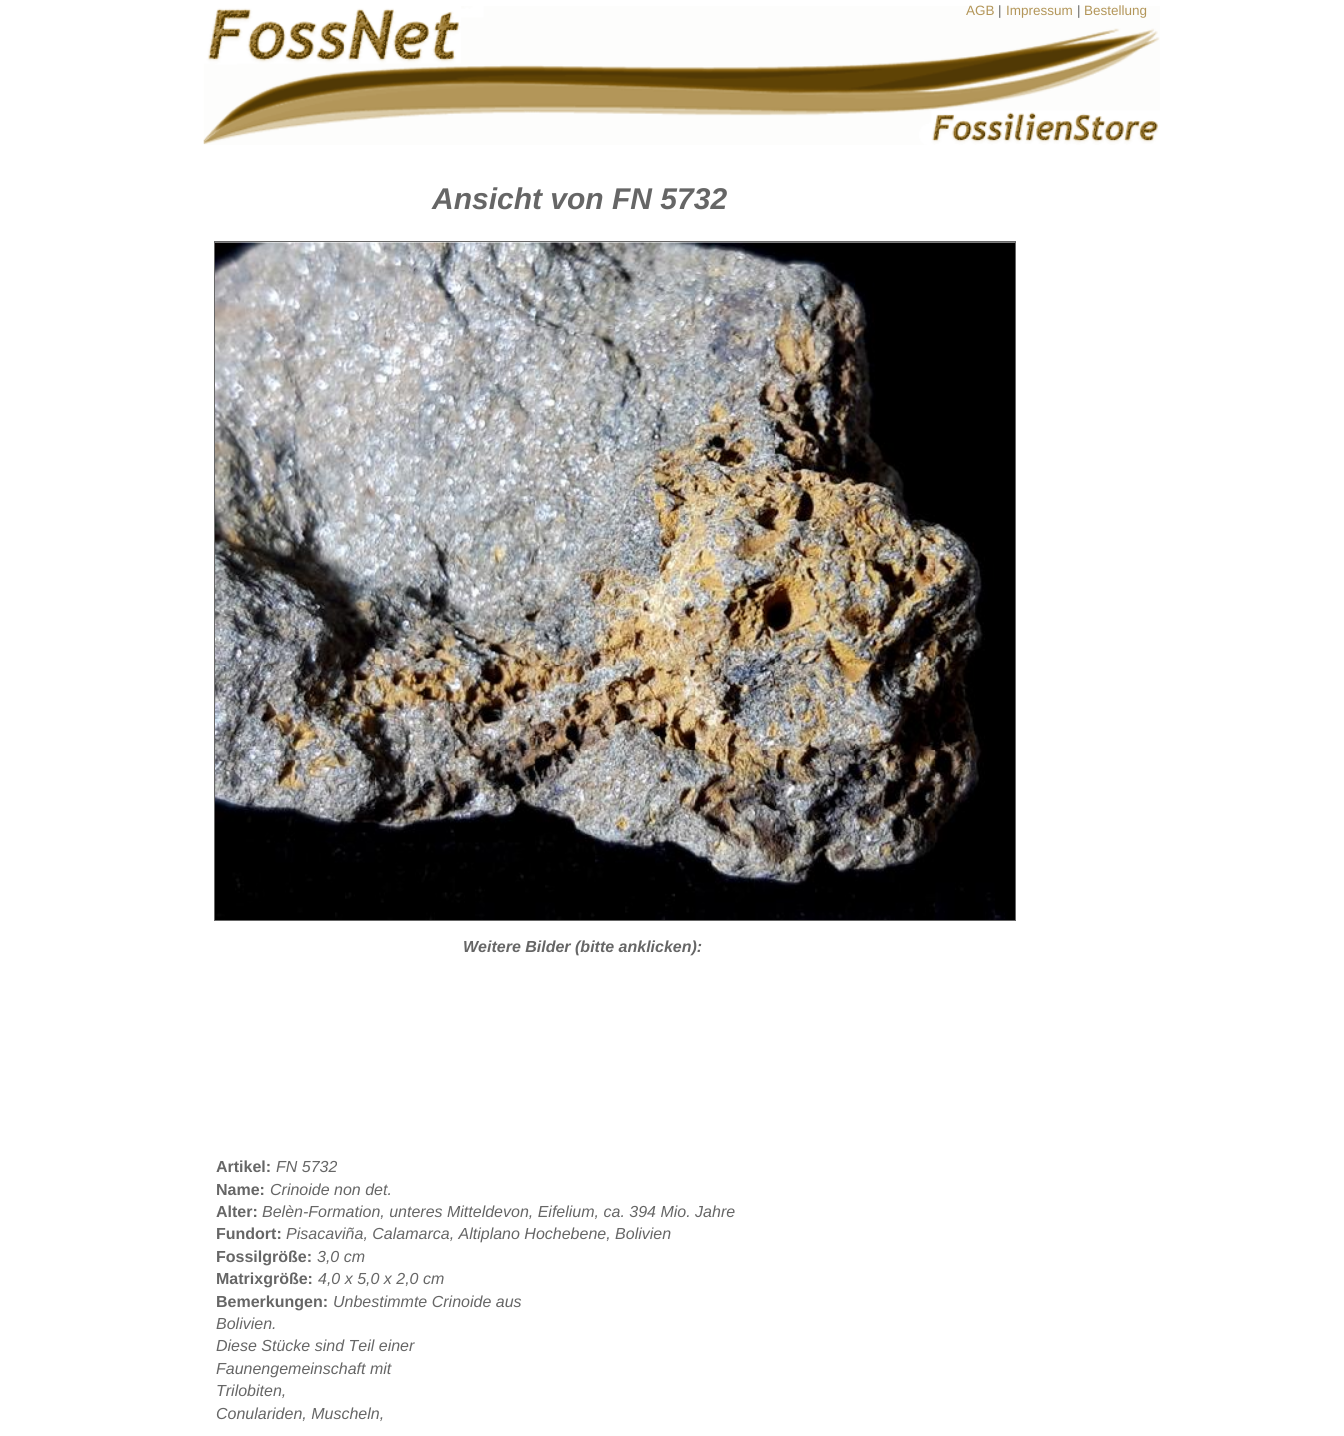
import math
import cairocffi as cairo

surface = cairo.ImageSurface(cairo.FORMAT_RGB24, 1344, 1436)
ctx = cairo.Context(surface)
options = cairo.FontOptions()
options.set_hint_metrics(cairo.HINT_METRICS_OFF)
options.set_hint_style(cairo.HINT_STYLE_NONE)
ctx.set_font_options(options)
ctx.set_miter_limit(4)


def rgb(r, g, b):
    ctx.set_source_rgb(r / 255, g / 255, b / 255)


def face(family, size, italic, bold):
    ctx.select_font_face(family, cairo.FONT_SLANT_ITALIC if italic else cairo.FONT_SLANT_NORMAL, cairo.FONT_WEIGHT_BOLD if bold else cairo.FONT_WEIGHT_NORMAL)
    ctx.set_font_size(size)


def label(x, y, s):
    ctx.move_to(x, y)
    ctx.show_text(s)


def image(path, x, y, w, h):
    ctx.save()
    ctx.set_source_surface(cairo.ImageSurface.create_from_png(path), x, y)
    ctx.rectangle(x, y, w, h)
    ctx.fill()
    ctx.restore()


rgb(255, 255, 255)
ctx.paint()
image('image0.png', 203, 6, 957, 139)
face('Liberation Sans', 13.5, 0, 0)
rgb(179, 150, 89)
label(966, 15, 'AGB')
rgb(102, 102, 102)
label(998, 15, '|')
rgb(179, 150, 89)
label(1006, 15, 'Impressum')
rgb(102, 102, 102)
label(1077, 15, '|')
rgb(179, 150, 89)
label(1084, 15, 'Bestellung')
face('Liberation Sans', 30, 1, 1)
rgb(102, 102, 102)
label(432, 209, 'Ansicht von FN 5732')
ctx.rectangle(214.5, 241.5, 801, 679)
ctx.set_line_width(1)
ctx.stroke()
image('image1.png', 215, 242, 800, 678)
face('Liberation Sans', 16, 1, 1)
label(463, 952, 'Weitere Bilder (bitte anklicken):')
face('Liberation Sans', 16, 0, 1)
label(216, 1172, 'Artikel:')
face('Liberation Sans', 16, 1, 0)
label(276, 1172, 'FN 5732')
face('Liberation Sans', 16, 0, 1)
label(216, 1195, 'Name:')
face('Liberation Sans', 16, 1, 0)
label(270, 1195, 'Crinoide non det.')
face('Liberation Sans', 16, 0, 1)
label(216, 1217, 'Alter:')
face('Liberation Sans', 16, 1, 0)
label(262, 1217, 'Belèn-Formation, unteres Mitteldevon, Eifelium, ca. 394 Mio. Jahre')
face('Liberation Sans', 16, 0, 1)
label(216, 1239, 'Fundort:')
face('Liberation Sans', 16, 1, 0)
label(286, 1239, 'Pisacaviña, Calamarca, Altiplano Hochebene, Bolivien')
face('Liberation Sans', 16, 0, 1)
label(216, 1262, 'Fossilgröße:')
face('Liberation Sans', 16, 1, 0)
label(317, 1262, '3,0 cm')
face('Liberation Sans', 16, 0, 1)
label(216, 1284, 'Matrixgröße:')
face('Liberation Sans', 16, 1, 0)
label(318, 1284, '4,0 x 5,0 x 2,0 cm')
face('Liberation Sans', 16, 0, 1)
label(216, 1307, 'Bemerkungen:')
face('Liberation Sans', 16, 1, 0)
label(333, 1307, 'Unbestimmte Crinoide aus')
label(216, 1329, 'Bolivien.')
label(216, 1351, 'Diese Stücke sind Teil einer')
label(216, 1374, 'Faunengemeinschaft mit')
label(216, 1396, 'Trilobiten,')
label(216, 1419, 'Conulariden, Muscheln,')
surface.write_to_png('render.png')
